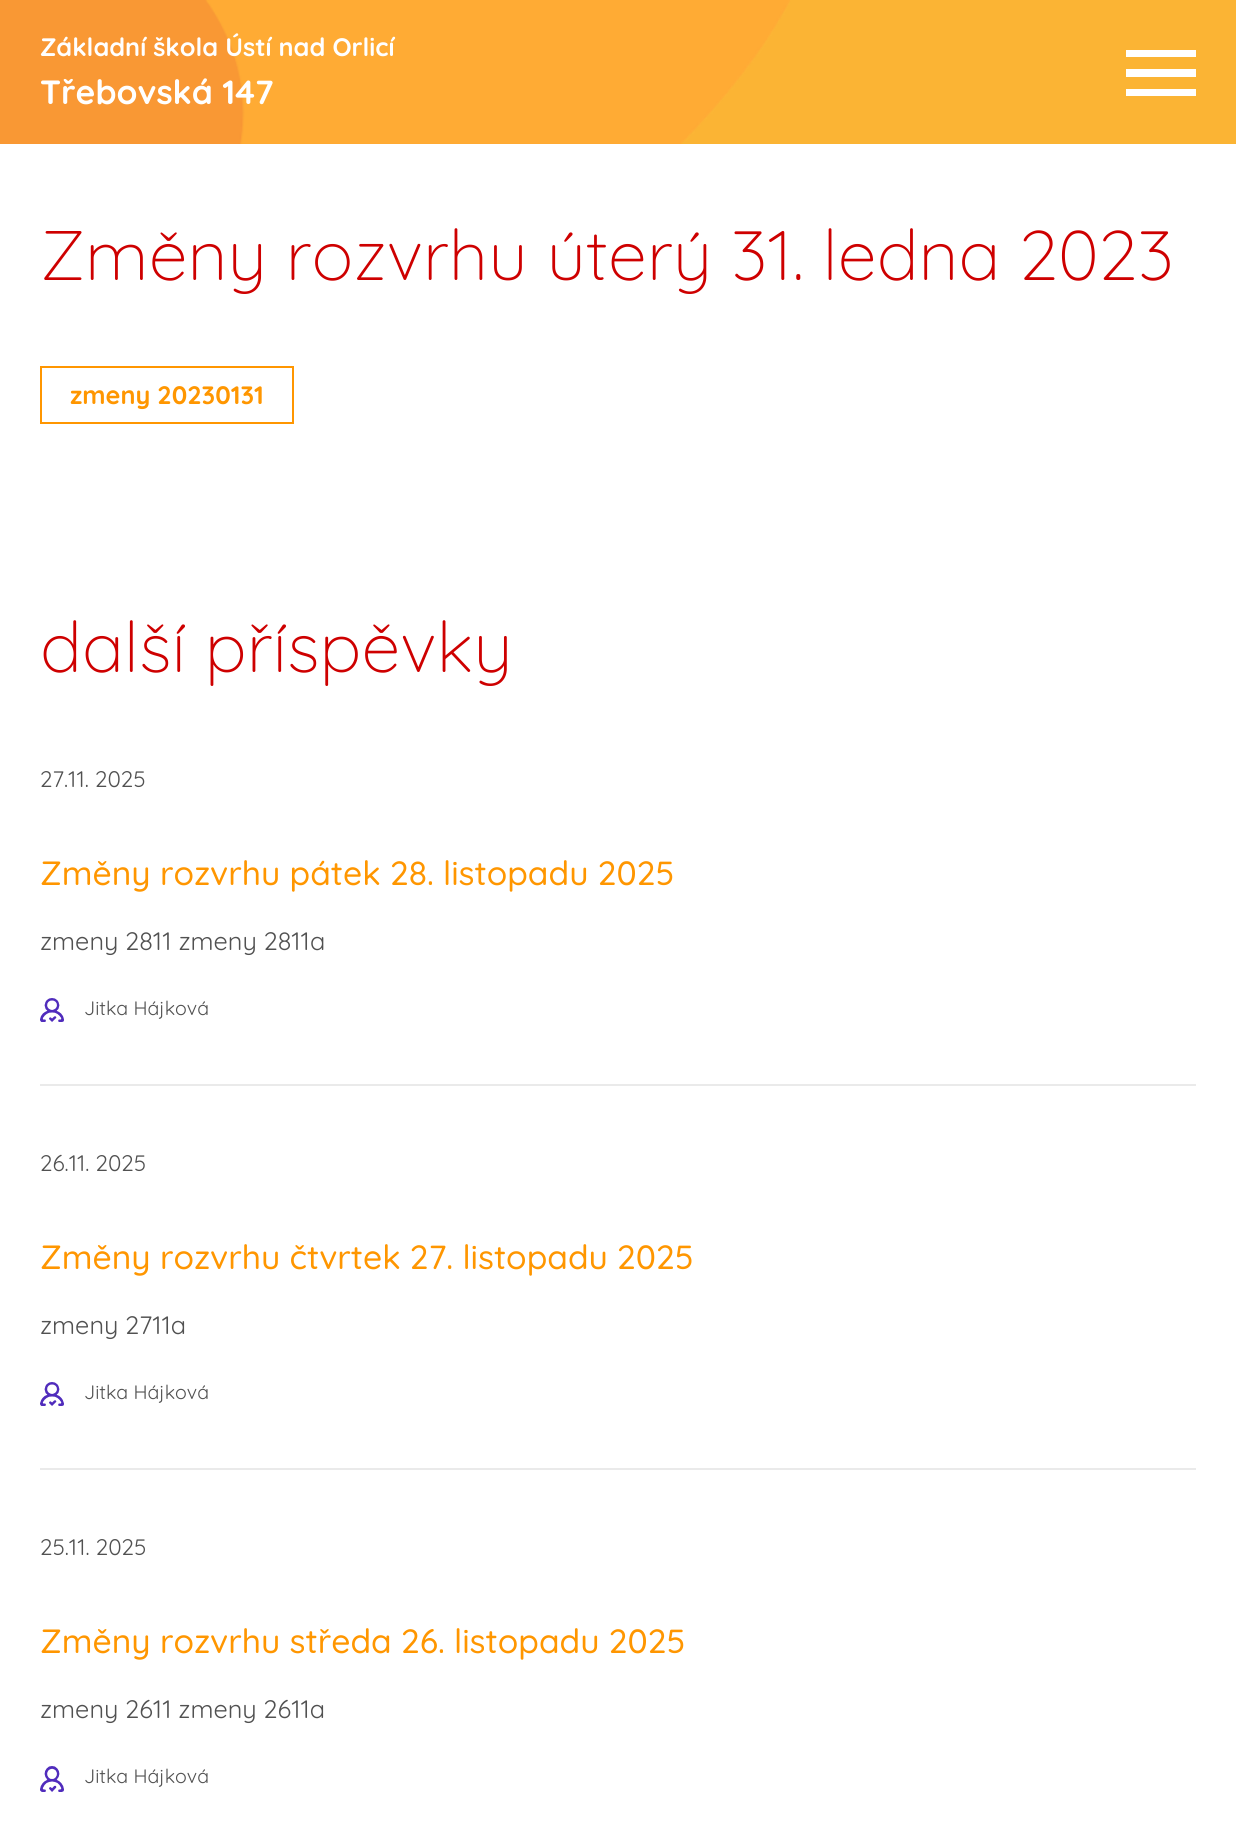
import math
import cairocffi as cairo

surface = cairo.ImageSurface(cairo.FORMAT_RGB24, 1236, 1848)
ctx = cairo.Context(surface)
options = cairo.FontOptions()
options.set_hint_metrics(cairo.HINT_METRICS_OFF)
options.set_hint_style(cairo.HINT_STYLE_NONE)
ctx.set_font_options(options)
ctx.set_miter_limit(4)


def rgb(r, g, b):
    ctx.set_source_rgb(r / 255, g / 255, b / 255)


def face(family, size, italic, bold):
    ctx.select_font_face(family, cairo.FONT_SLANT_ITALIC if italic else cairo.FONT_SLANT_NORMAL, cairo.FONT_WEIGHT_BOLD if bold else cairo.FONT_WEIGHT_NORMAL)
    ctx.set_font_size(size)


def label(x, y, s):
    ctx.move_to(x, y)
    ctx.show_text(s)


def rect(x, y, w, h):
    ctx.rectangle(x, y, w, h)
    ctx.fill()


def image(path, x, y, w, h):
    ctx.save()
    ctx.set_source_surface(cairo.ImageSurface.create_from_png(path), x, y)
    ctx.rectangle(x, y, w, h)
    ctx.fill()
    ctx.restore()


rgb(255, 255, 255)
ctx.paint()
image('image0.png', 0, 0, 1236, 144)
face('Quicksand', 25.25, 0, 1)
rgb(255, 255, 255)
label(40, 56, 'Základní škola Ústí nad Orlicí')
face('Quicksand', 33.6, 0, 1)
label(40, 104, 'Třebovská 147')
ctx.new_path()
ctx.move_to(1126, 96)
ctx.line_to(1196, 96)
ctx.line_to(1196, 89)
ctx.line_to(1126, 89)
ctx.close_path()
ctx.move_to(1126, 77)
ctx.line_to(1196, 77)
ctx.line_to(1196, 69)
ctx.line_to(1126, 69)
ctx.close_path()
ctx.move_to(1126, 50)
ctx.line_to(1126, 57)
ctx.line_to(1196, 57)
ctx.line_to(1196, 50)
ctx.close_path()
ctx.fill()
face('Quicksand Light', 70, 0, 0)
rgb(206, 0, 0)
label(40, 280, 'Změny rozvrhu úterý 31. ledna 2023')
ctx.rectangle(41, 367, 252, 56)
rgb(255, 150, 0)
ctx.stroke()
face('Quicksand', 25.25, 0, 1)
label(70, 404, 'zmeny 20230131')
face('Quicksand Light', 70, 0, 0)
rgb(206, 0, 0)
label(40, 672, 'další příspěvky')
rgb(234, 234, 234)
rect(40, 1084, 1156, 2)
face('Quicksand', 22.5, 0, 0)
rgb(81, 81, 81)
label(40, 787, '27.11. 2025')
face('Quicksand Medium', 33.6, 0, 0)
rgb(255, 150, 0)
label(40, 885, 'Změny rozvrhu pátek 28. listopadu 2025')
face('Quicksand', 25.25, 0, 0)
rgb(81, 81, 81)
label(40, 950, 'zmeny 2811 zmeny 2811a')
image('image1.png', 40, 998, 24, 24)
face('Quicksand', 19.5, 0, 0)
label(84, 1015, 'Jitka Hájková')
rgb(234, 234, 234)
rect(40, 1468, 1156, 2)
face('Quicksand', 22.5, 0, 0)
rgb(81, 81, 81)
label(40, 1171, '26.11. 2025')
face('Quicksand Medium', 33.6, 0, 0)
rgb(255, 150, 0)
label(40, 1269, 'Změny rozvrhu čtvrtek 27. listopadu 2025')
face('Quicksand', 25.25, 0, 0)
rgb(81, 81, 81)
label(40, 1334, 'zmeny 2711a')
image('image2.png', 40, 1382, 24, 24)
face('Quicksand', 19.5, 0, 0)
label(84, 1399, 'Jitka Hájková')
face('Quicksand', 22.5, 0, 0)
label(40, 1555, '25.11. 2025')
face('Quicksand Medium', 33.6, 0, 0)
rgb(255, 150, 0)
label(40, 1653, 'Změny rozvrhu středa 26. listopadu 2025')
face('Quicksand', 25.25, 0, 0)
rgb(81, 81, 81)
label(40, 1718, 'zmeny 2611 zmeny 2611a')
image('image3.png', 40, 1766, 24, 26)
face('Quicksand', 19.5, 0, 0)
label(84, 1783, 'Jitka Hájková')
surface.write_to_png('render.png')
